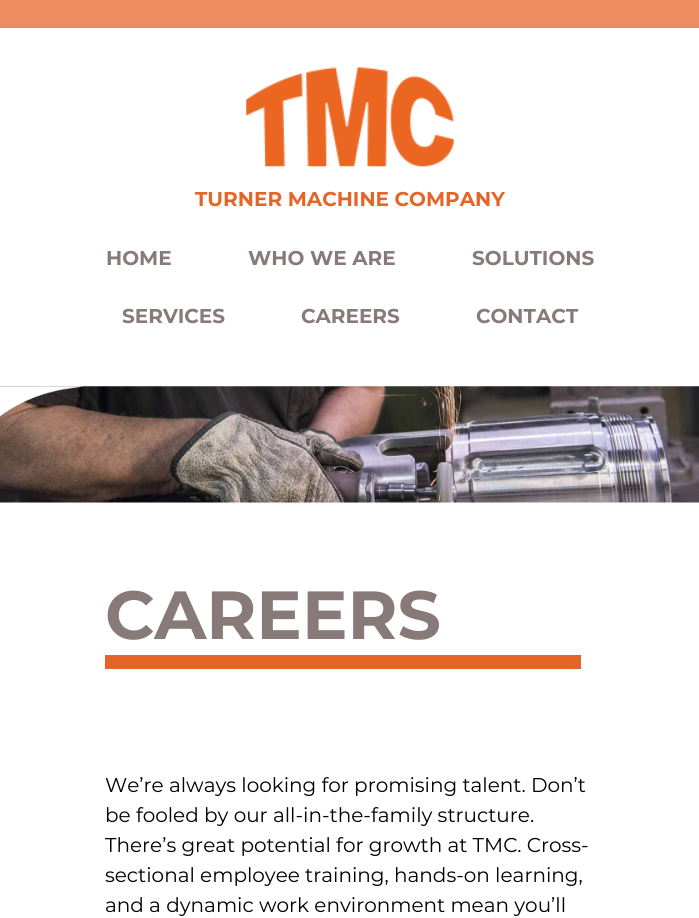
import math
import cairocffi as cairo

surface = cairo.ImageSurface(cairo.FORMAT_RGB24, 699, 918)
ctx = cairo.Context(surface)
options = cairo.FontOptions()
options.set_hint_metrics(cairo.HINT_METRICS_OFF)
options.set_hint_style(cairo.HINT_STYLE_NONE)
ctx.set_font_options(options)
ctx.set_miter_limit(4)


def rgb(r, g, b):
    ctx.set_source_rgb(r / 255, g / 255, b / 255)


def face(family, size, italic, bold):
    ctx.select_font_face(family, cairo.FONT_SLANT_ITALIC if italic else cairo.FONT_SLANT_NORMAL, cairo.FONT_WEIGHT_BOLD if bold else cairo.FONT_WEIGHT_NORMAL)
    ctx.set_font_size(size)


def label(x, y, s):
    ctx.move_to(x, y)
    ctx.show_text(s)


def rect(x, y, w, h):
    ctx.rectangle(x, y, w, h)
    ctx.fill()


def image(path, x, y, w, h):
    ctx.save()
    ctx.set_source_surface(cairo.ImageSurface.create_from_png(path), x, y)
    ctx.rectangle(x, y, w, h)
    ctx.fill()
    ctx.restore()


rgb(255, 255, 255)
ctx.paint()
rgb(236, 140, 95)
rect(0, 0, 699, 28)
image('image0.png', 246, 67, 208, 100)
face('Montserrat', 20, 0, 1)
rgb(229, 101, 41)
label(195, 206, 'TURNER MACHINE COMPANY')
rgb(136, 122, 121)
label(106, 265, 'HOME')
label(248, 265, 'WHO WE ARE')
label(472, 265, 'SOLUTIONS')
label(122, 323, 'SERVICES')
label(301, 323, 'CAREERS')
label(476, 323, 'CONTACT')
image('image1.png', 0, 386, 699, 117)
image('image2.png', 0, 386, 84, 31)
face('Montserrat', 68, 0, 1)
label(105, 639, 'CAREERS')
rgb(229, 101, 41)
rect(105, 655, 476, 14)
face('Montserrat', 20, 0, 0)
rgb(0, 0, 0)
label(105, 792, 'We’re always looking for promising talent. Don’t')
label(105, 822, 'be fooled by our all-in-the-family structure.')
label(105, 852, 'There’s great potential for growth at TMC. Cross-')
label(105, 882, 'sectional employee training, hands-on learning,')
label(105, 912, 'and a dynamic work environment mean you’ll')
surface.write_to_png('render.png')
